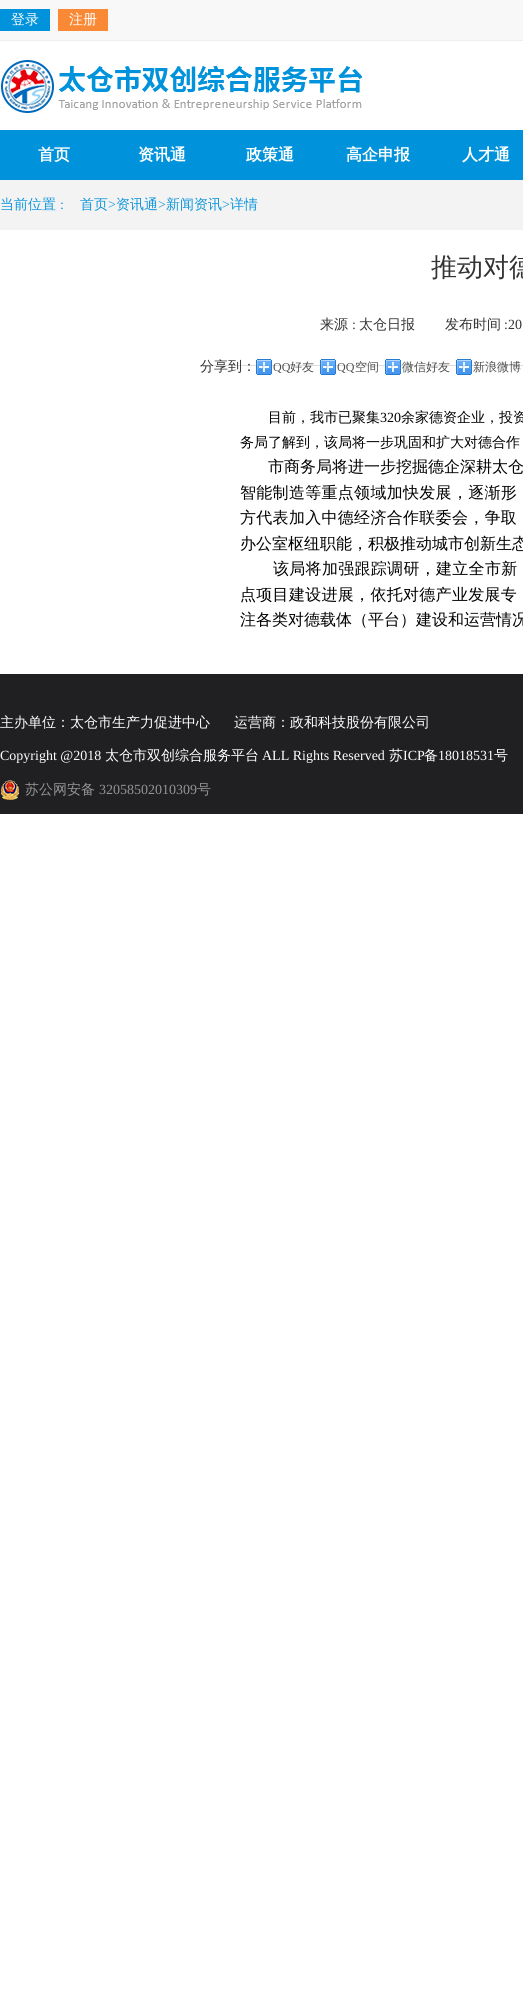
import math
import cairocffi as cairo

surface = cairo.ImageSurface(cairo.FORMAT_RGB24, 523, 1989)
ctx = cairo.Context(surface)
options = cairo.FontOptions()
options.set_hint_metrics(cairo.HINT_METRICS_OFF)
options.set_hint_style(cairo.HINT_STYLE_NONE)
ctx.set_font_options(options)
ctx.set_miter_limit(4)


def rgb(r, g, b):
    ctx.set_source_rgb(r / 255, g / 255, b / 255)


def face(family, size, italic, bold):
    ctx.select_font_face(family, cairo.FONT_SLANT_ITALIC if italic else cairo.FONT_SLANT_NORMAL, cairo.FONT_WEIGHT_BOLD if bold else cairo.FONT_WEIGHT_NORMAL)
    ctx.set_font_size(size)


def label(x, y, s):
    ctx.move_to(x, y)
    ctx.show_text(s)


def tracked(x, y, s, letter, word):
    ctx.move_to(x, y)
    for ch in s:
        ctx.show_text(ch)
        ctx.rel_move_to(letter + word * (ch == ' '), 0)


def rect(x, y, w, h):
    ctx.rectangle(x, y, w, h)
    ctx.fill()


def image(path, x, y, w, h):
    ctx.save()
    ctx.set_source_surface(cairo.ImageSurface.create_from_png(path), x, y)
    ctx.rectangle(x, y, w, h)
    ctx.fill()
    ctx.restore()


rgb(255, 255, 255)
ctx.paint()
rgb(248, 248, 248)
rect(0, 0, 523, 40)
rgb(238, 238, 238)
rect(0, 40, 523, 1)
rgb(0, 146, 218)
rect(0, 9, 50, 22)
face('WenQuanYi Zen Hei Medium', 14, 0, 0)
rgb(255, 255, 255)
label(11, 24, '登录')
rgb(250, 137, 54)
rect(58, 9, 50, 22)
rgb(255, 255, 255)
label(69, 24, '注册')
image('image0.png', 1, 60, 362, 53)
rgb(0, 146, 218)
rect(0, 130, 523, 50)
face('WenQuanYi Zen Hei', 16, 0, 1)
rgb(255, 255, 255)
label(38, 160, '首页')
label(138, 160, '资讯通')
label(246, 160, '政策通')
label(346, 160, '高企申报')
label(462, 160, '人才通')
rgb(243, 243, 243)
rect(0, 180, 523, 50)
face('WenQuanYi Zen Hei Medium', 14, 0, 0)
rgb(18, 150, 219)
label(0, 209, '当前位置')
face('Liberation Serif', 14, 0, 0)
label(60, 209, ':')
face('WenQuanYi Zen Hei Medium', 14, 0, 0)
label(80, 209, '首页')
face('Liberation Serif', 14, 0, 0)
label(108, 209, '>')
face('WenQuanYi Zen Hei Medium', 14, 0, 0)
label(116, 209, '资讯通')
face('Liberation Serif', 14, 0, 0)
label(158, 209, '>')
face('WenQuanYi Zen Hei Medium', 14, 0, 0)
label(166, 209, '新闻资讯')
face('Liberation Serif', 14, 0, 0)
label(222, 209, '>')
face('WenQuanYi Zen Hei Medium', 14, 0, 0)
label(230, 209, '详情')
face('WenQuanYi Zen Hei Medium', 26, 0, 0)
rgb(51, 51, 51)
label(431, 276, '推动对德')
rgb(221, 221, 221)
rect(200, 365, 323, 1)
face('WenQuanYi Zen Hei Medium', 14, 0, 0)
rgb(51, 51, 51)
label(320, 329, '来源')
face('Liberation Serif', 14, 0, 0)
label(352, 329, ':')
face('WenQuanYi Zen Hei Medium', 14, 0, 0)
label(359, 329, '太仓日报')
label(445, 329, '发布时间')
face('Liberation Serif', 14, 0, 0)
label(504, 329, ':20')
face('WenQuanYi Zen Hei Medium', 14, 0, 0)
label(200, 371, '分享到：')
image('image1.png', 256, 359, 16, 16)
face('Liberation Serif', 12, 0, 0)
rgb(77, 77, 77)
label(273, 371, 'QQ')
face('WenQuanYi Zen Hei Medium', 12, 0, 0)
label(290, 371, '好友')
image('image1.png', 320, 359, 16, 16)
face('Liberation Serif', 12, 0, 0)
label(337, 371, 'QQ')
face('WenQuanYi Zen Hei Medium', 12, 0, 0)
label(355, 371, '空间')
image('image1.png', 385, 359, 16, 16)
label(402, 371, '微信好友')
image('image1.png', 456, 359, 16, 16)
label(473, 371, '新浪微博')
face('WenQuanYi Zen Hei Medium', 14, 0, 0)
rgb(0, 0, 0)
label(268, 422, '目前，我市已聚集')
face('Liberation Serif', 14, 0, 0)
label(380, 422, '320')
face('WenQuanYi Zen Hei Medium', 14, 0, 0)
label(401, 422, '余家德资企业，投资')
label(240, 447, '务局了解到，该局将一步巩固和扩大对德合作')
face('WenQuanYi Zen Hei Medium', 16, 0, 0)
label(268, 472, '市商务局将进一步挖掘德企深耕太仓')
tracked(240, 498, '智能制造等重点领域加快发展，逐渐形', 0.3, 0)
tracked(240, 523, '方代表加入中德经济合作联委会，争取', 0.3, 0)
label(240, 549, '办公室枢纽职能，积极推动城市创新生态')
tracked(273, 574, '该局将加强跟踪调研，建立全市新', 0.3, 0)
tracked(240, 600, '点项目建设进展，依托对德产业发展专', 0.3, 0)
label(240, 625, '注各类对德载体（平台）建设和运营情况')
rgb(32, 32, 34)
rect(0, 674, 523, 140)
face('WenQuanYi Zen Hei Medium', 14, 0, 0)
rgb(255, 255, 255)
label(0, 727, '主办单位：太仓市生产力促进中心')
label(234, 727, '运营商：政和科技股份有限公司')
face('Liberation Serif', 14, 0, 0)
label(0, 760, 'Copyright @2018')
face('WenQuanYi Zen Hei Medium', 14, 0, 0)
label(105, 760, '太仓市双创综合服务平台')
face('Liberation Serif', 14, 0, 0)
label(262, 760, 'ALL Rights Reserved')
face('WenQuanYi Zen Hei Medium', 14, 0, 0)
label(389, 760, '苏')
face('Liberation Serif', 14, 0, 0)
label(403, 760, 'ICP')
face('WenQuanYi Zen Hei Medium', 14, 0, 0)
label(424, 760, '备')
face('Liberation Serif', 14, 0, 0)
label(438, 760, '18018531')
face('WenQuanYi Zen Hei Medium', 14, 0, 0)
label(494, 760, '号')
image('image2.png', 1, 780, 18, 20)
rgb(147, 147, 147)
label(25, 794, '苏公网安备')
face('Liberation Serif', 14, 0, 0)
label(99, 794, '32058502010309')
face('WenQuanYi Zen Hei Medium', 14, 0, 0)
label(197, 794, '号')
surface.write_to_png('render.png')
